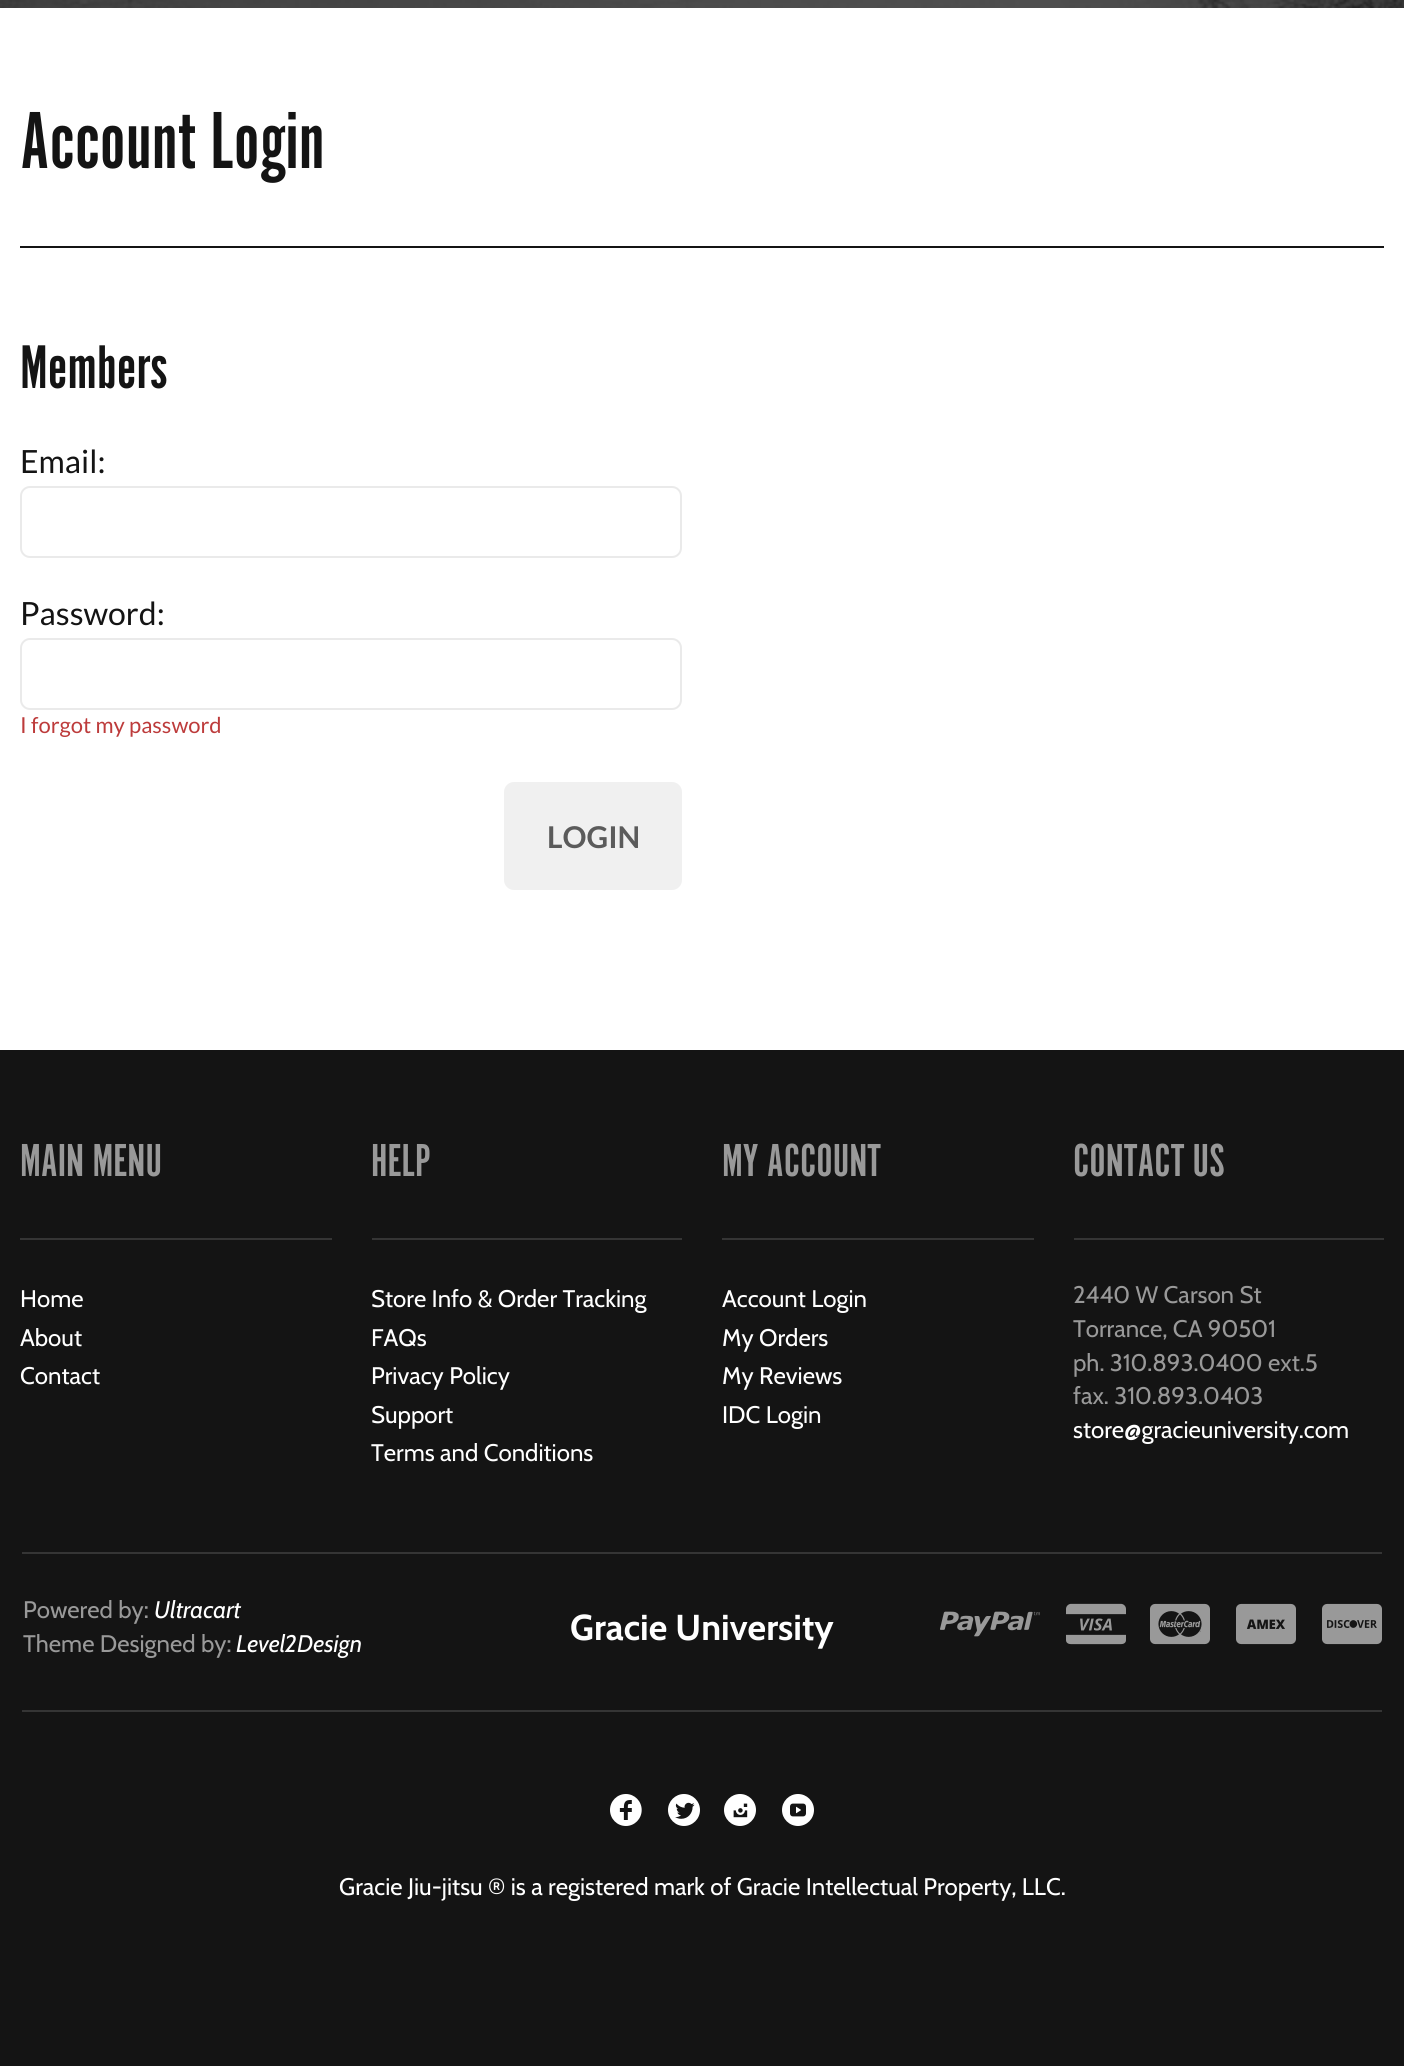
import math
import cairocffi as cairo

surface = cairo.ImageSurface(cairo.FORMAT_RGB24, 1404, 2066)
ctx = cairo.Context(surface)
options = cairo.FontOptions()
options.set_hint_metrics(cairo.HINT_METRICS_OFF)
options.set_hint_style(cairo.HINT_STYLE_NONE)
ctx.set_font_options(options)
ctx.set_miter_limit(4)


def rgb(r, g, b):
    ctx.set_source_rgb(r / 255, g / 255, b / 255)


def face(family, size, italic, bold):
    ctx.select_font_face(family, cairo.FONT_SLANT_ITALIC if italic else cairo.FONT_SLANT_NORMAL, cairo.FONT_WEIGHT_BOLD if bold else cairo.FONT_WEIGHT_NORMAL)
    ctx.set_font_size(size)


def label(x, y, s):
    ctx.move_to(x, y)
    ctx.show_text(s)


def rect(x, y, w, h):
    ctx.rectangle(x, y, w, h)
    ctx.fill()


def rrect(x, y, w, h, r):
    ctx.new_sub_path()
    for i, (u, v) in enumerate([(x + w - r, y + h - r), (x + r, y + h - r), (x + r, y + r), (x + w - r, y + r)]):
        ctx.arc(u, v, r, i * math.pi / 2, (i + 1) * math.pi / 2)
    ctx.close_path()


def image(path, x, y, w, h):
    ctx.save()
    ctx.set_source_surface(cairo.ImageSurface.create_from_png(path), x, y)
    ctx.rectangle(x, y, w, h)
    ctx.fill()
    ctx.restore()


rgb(255, 255, 255)
ctx.paint()
image('image0.png', 0, 0, 1404, 8)
rgb(20, 20, 20)
rect(20, 246, 1364, 2)
face('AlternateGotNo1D', 84, 0, 0)
label(20, 168, 'Account Login')
face('AlternateGotNo1D', 64, 0, 0)
label(20, 388, 'Members')
face('Lato', 32, 0, 0)
label(20, 473, 'Email:')
rrect(21, 487, 660, 70, 9)
rgb(234, 234, 234)
ctx.stroke()
rgb(20, 20, 20)
label(20, 625, 'Password:')
rrect(21, 639, 660, 70, 9)
rgb(234, 234, 234)
ctx.stroke()
face('Lato', 22, 0, 0)
rgb(189, 59, 59)
label(20, 733, 'I forgot my password')
rgb(240, 240, 240)
rrect(505, 783, 176, 106, 9)
ctx.fill_preserve()
ctx.stroke()
face('Lato', 30, 0, 1)
rgb(91, 91, 91)
label(547, 848, 'LOGIN')
rgb(20, 20, 20)
rect(0, 1050, 1404, 1016)
rgb(53, 53, 53)
rect(20, 1238, 312, 2)
face('AlternateGotNo1D', 48, 0, 0)
rgb(153, 153, 153)
label(20, 1176, 'MAIN MENU')
face('Cabin', 24, 0, 0)
rgb(255, 255, 255)
label(20, 1307, 'Home')
label(20, 1346, 'About')
label(20, 1384, 'Contact')
rgb(53, 53, 53)
rect(372, 1238, 310, 2)
face('AlternateGotNo1D', 48, 0, 0)
rgb(153, 153, 153)
label(371, 1176, 'HELP')
face('Cabin', 24, 0, 0)
rgb(255, 255, 255)
label(371, 1307, 'Store Info & Order Tracking')
label(371, 1346, 'FAQs')
label(371, 1384, 'Privacy Policy')
label(371, 1423, 'Support')
label(371, 1461, 'Terms and Conditions')
rgb(53, 53, 53)
rect(722, 1238, 312, 2)
face('AlternateGotNo1D', 48, 0, 0)
rgb(153, 153, 153)
label(722, 1176, 'MY ACCOUNT')
face('Cabin', 24, 0, 0)
rgb(255, 255, 255)
label(722, 1307, 'Account Login')
label(722, 1346, 'My Orders')
label(722, 1384, 'My Reviews')
label(722, 1423, 'IDC Login')
rgb(53, 53, 53)
rect(1074, 1238, 310, 2)
face('AlternateGotNo1D', 48, 0, 0)
rgb(153, 153, 153)
label(1073, 1176, 'CONTACT US')
face('Cabin', 24, 0, 0)
label(1073, 1303, '2440 W Carson St')
label(1073, 1337, 'Torrance, CA 90501')
label(1073, 1371, 'ph. 310.893.0400 ext.5')
label(1073, 1404, 'fax. 310.893.0403')
rgb(255, 255, 255)
label(1073, 1438, 'store@gracieuniversity.com')
rgb(53, 53, 53)
rect(22, 1552, 1360, 2)
rect(22, 1710, 1360, 2)
rgb(153, 153, 153)
label(23, 1618, 'Powered by:')
face('Cabin', 24, 1, 0)
rgb(255, 255, 255)
label(154, 1618, 'Ultracart')
face('Cabin', 24, 0, 0)
rgb(153, 153, 153)
label(23, 1652, 'Theme Designed by:')
face('Cabin', 24, 1, 0)
rgb(255, 255, 255)
label(236, 1652, 'Level2Design')
face('Cabin', 36, 0, 1)
label(570, 1640, 'Gracie University')
image('image1.png', 940, 1611, 100, 26)
image('image2.png', 1066, 1603, 60, 42)
image('image3.png', 1150, 1603, 60, 42)
image('image4.png', 1236, 1603, 60, 42)
image('image5.png', 1322, 1603, 60, 42)
image('image6.png', 610, 1794, 32, 32)
image('image7.png', 668, 1794, 32, 32)
image('image8.png', 724, 1794, 32, 32)
image('image9.png', 782, 1794, 32, 32)
face('Cabin', 24, 0, 0)
label(339, 1895, 'Gracie Jiu-jitsu ® is a registered mark of Gracie Intellectual Property, LLC.')
surface.write_to_png('render.png')
